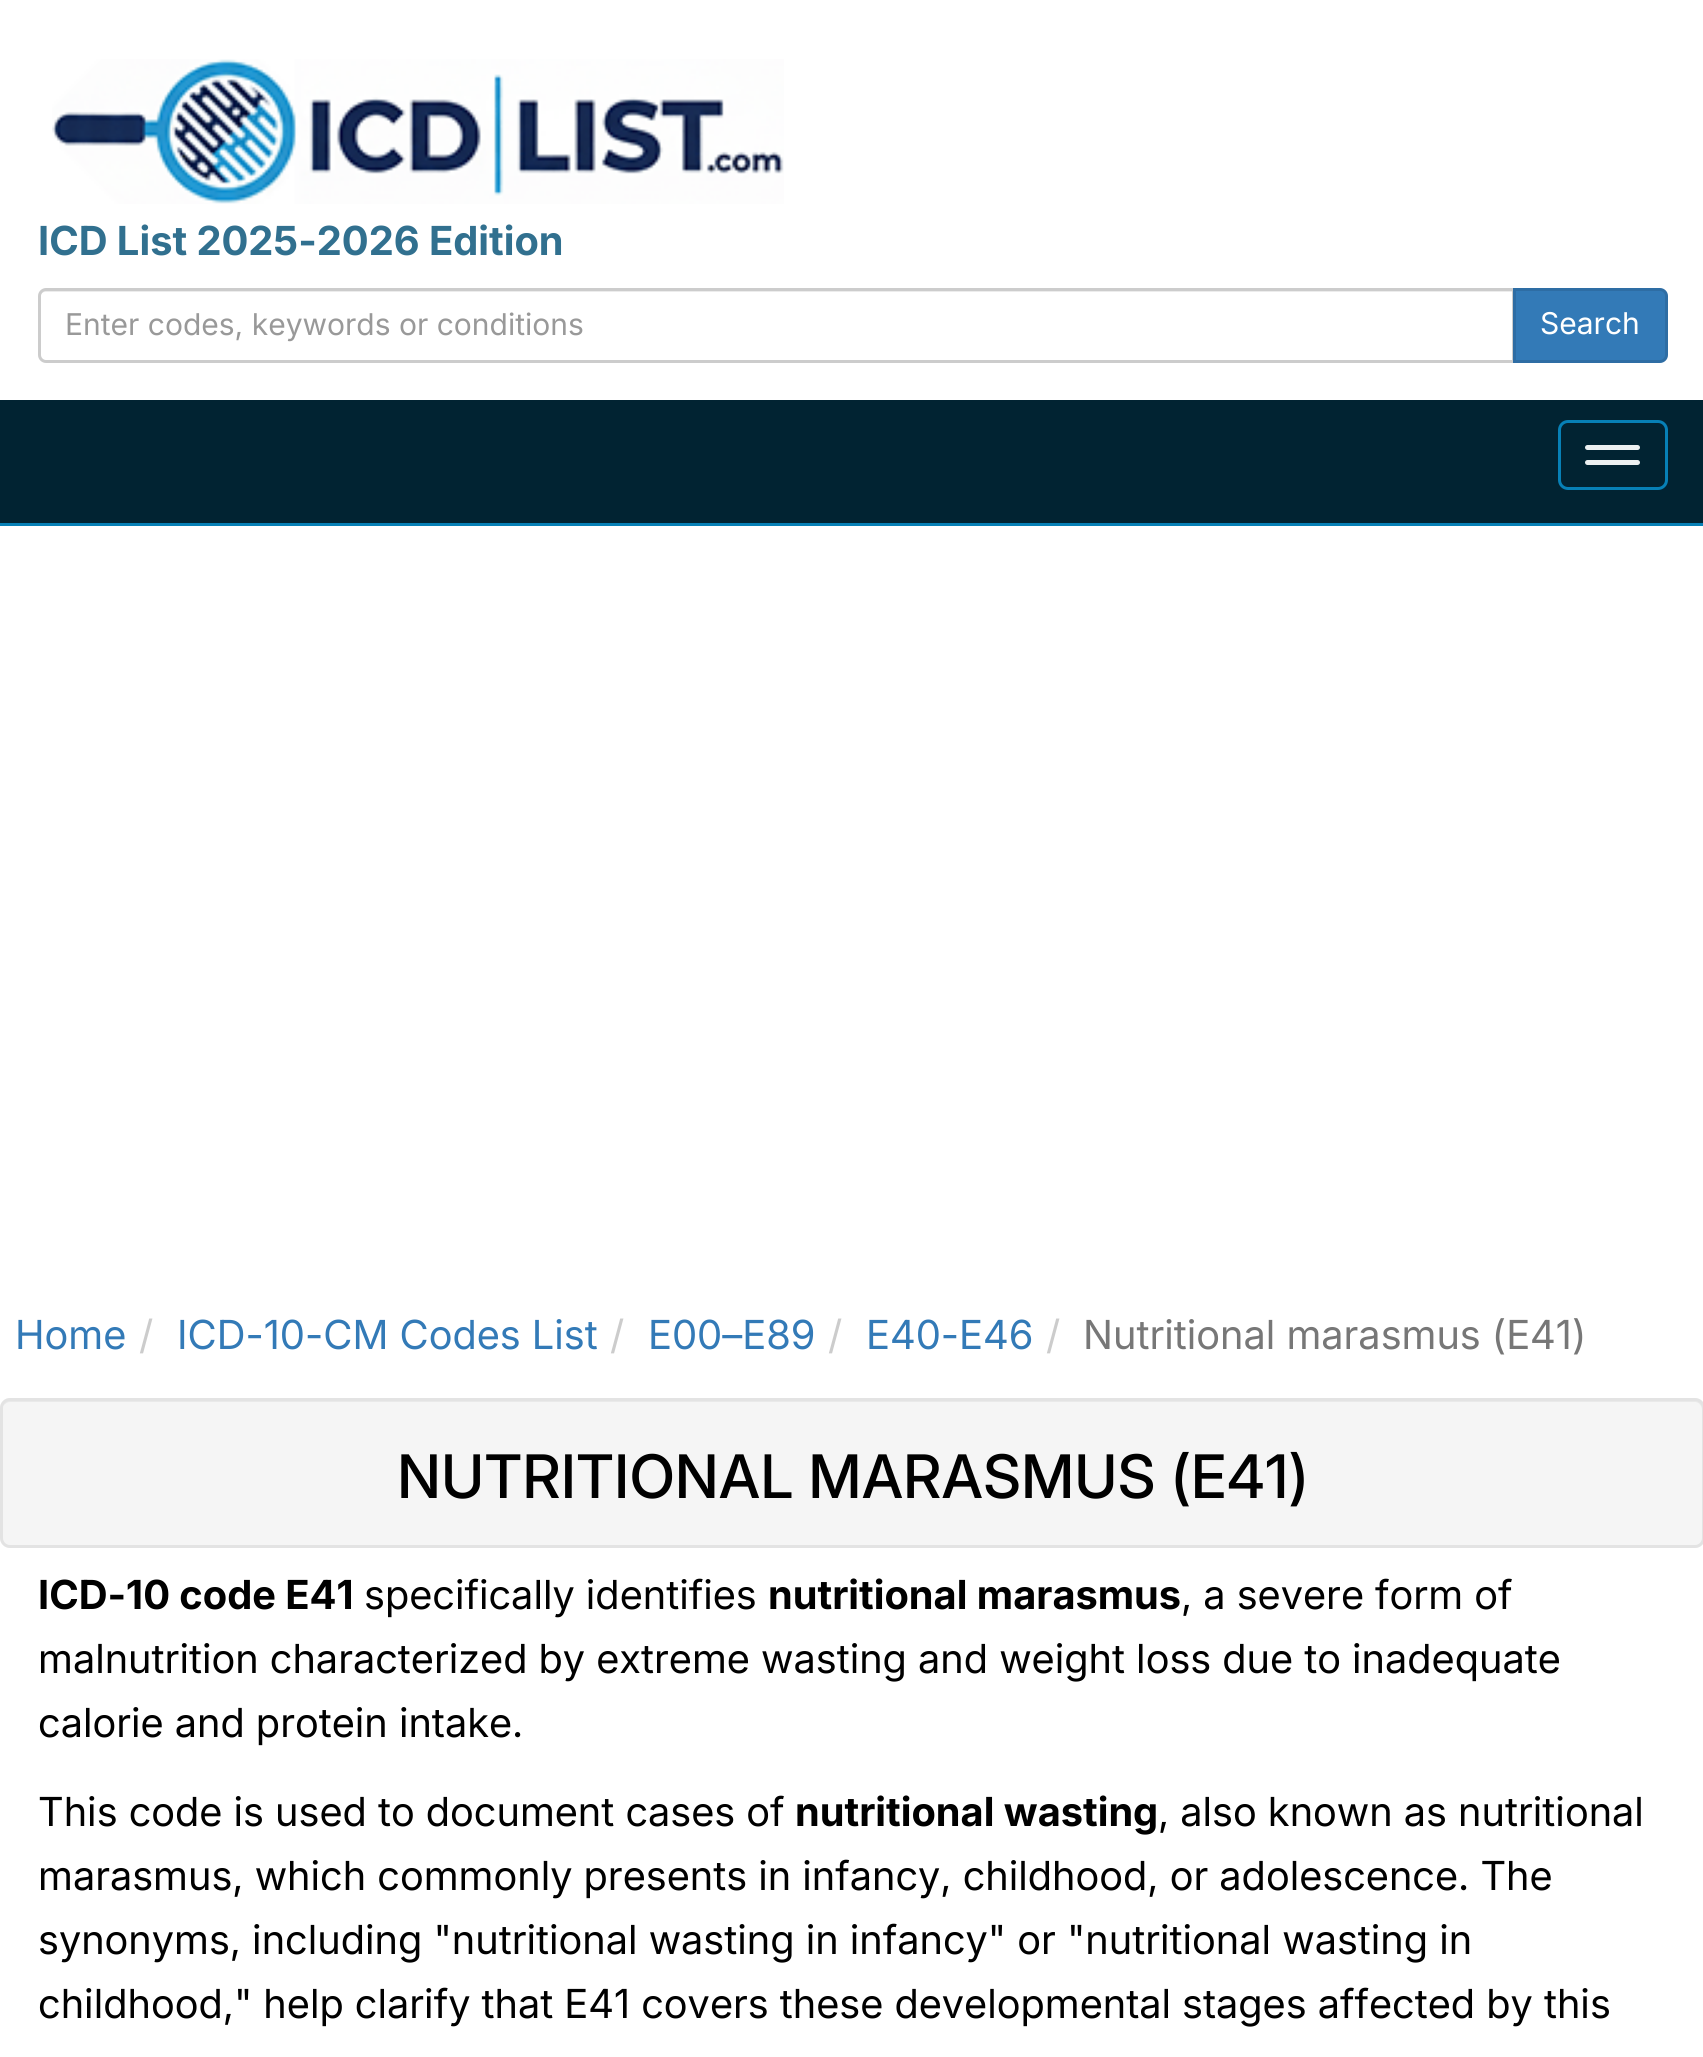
import math
import cairocffi as cairo

surface = cairo.ImageSurface(cairo.FORMAT_RGB24, 1703, 2057)
ctx = cairo.Context(surface)
options = cairo.FontOptions()
options.set_hint_metrics(cairo.HINT_METRICS_OFF)
options.set_hint_style(cairo.HINT_STYLE_NONE)
ctx.set_font_options(options)
ctx.set_miter_limit(4)


def rgb(r, g, b):
    ctx.set_source_rgb(r / 255, g / 255, b / 255)


def face(family, size, italic, bold):
    ctx.select_font_face(family, cairo.FONT_SLANT_ITALIC if italic else cairo.FONT_SLANT_NORMAL, cairo.FONT_WEIGHT_BOLD if bold else cairo.FONT_WEIGHT_NORMAL)
    ctx.set_font_size(size)


def label(x, y, s):
    ctx.move_to(x, y)
    ctx.show_text(s)


def rect(x, y, w, h):
    ctx.rectangle(x, y, w, h)
    ctx.fill()


def rrect(x, y, w, h, r):
    ctx.new_sub_path()
    for i, (u, v) in enumerate([(x + w - r, y + h - r), (x + r, y + h - r), (x + r, y + r), (x + w - r, y + r)]):
        ctx.arc(u, v, r, i * math.pi / 2, (i + 1) * math.pi / 2)
    ctx.close_path()


def image(path, x, y, w, h):
    ctx.save()
    ctx.set_source_surface(cairo.ImageSurface.create_from_png(path), x, y)
    ctx.rectangle(x, y, w, h)
    ctx.fill()
    ctx.restore()


rgb(255, 255, 255)
ctx.paint()
image('image0.png', 52, 59, 732, 145)
face('Inter', 40, 0, 1)
rgb(49, 112, 143)
label(38, 255, 'ICD List 2025-2026 Edition')
rgb(236, 236, 236)
ctx.new_path()
ctx.move_to(45, 292)
ctx.line_to(1512, 292)
ctx.line_to(1512, 360)
ctx.line_to(1513, 360)
ctx.line_to(1513, 290)
ctx.line_to(45, 290)
ctx.curve_to(42, 290, 40, 292, 40, 295)
ctx.line_to(40, 298)
ctx.curve_to(40, 295, 42, 292, 45, 292)
ctx.close_path()
ctx.fill()
ctx.new_path()
ctx.move_to(46, 289.5)
ctx.line_to(1513.5, 289.5)
ctx.line_to(1513.5, 361.5)
ctx.line_to(46, 361.5)
ctx.curve_to(42.5, 361.5, 39.5, 358.5, 39.5, 355)
ctx.line_to(39.5, 296)
ctx.curve_to(39.5, 292.5, 42.5, 289.5, 46, 289.5)
ctx.close_path()
rgb(204, 204, 204)
ctx.set_line_width(3)
ctx.stroke()
face('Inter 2', 30, 0, 0)
rgb(153, 153, 153)
label(65, 335, 'Enter codes, keywords or conditions')
rgb(51, 122, 183)
ctx.new_path()
ctx.move_to(1514.5, 289.5)
ctx.line_to(1660, 289.5)
ctx.curve_to(1663.5, 289.5, 1666.5, 292.5, 1666.5, 296)
ctx.line_to(1666.5, 355)
ctx.curve_to(1666.5, 358.5, 1663.5, 361.5, 1660, 361.5)
ctx.line_to(1514.5, 361.5)
ctx.close_path()
ctx.fill_preserve()
rgb(46, 109, 164)
ctx.stroke()
rgb(255, 255, 255)
label(1540, 334, 'Search')
rgb(1, 35, 50)
rect(0, 400, 1703, 123)
rgb(7, 128, 182)
rect(0, 523, 1703, 3)
rrect(1559.5, 421.5, 107, 67, 8.5)
ctx.stroke()
rgb(236, 240, 241)
rrect(1585, 445, 55, 5, 2.5)
ctx.fill()
rrect(1585, 460, 55, 5, 2.5)
ctx.fill()
face('Inter', 40, 0, 0)
rgb(51, 122, 183)
label(15, 1349, 'Home')
rgb(204, 204, 204)
label(139, 1349, '/')
rgb(51, 122, 183)
label(177, 1349, 'ICD-10-CM Codes List')
rgb(204, 204, 204)
label(610, 1349, '/')
rgb(51, 122, 183)
label(648, 1349, 'E00–E89')
rgb(204, 204, 204)
label(828, 1349, '/')
rgb(51, 122, 183)
label(866, 1349, 'E40-E46')
rgb(204, 204, 204)
label(1046, 1349, '/')
rgb(119, 119, 119)
label(1083, 1349, 'Nutritional marasmus (E41)')
rgb(245, 245, 245)
rrect(0, 1398, 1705, 150, 10)
ctx.fill()
rgb(233, 233, 233)
ctx.new_path()
ctx.move_to(10, 1402)
ctx.line_to(1695, 1402)
ctx.curve_to(1699, 1402, 1702, 1406, 1702, 1410)
ctx.line_to(1702, 1541)
ctx.curve_to(1703, 1540, 1703, 1538, 1703, 1537)
ctx.line_to(1703, 1408)
ctx.curve_to(1703, 1404, 1699, 1400, 1695, 1400)
ctx.line_to(11, 1400)
ctx.curve_to(7, 1400, 4, 1403, 3, 1406)
ctx.curve_to(5, 1404, 7, 1402, 10, 1402)
ctx.close_path()
ctx.fill()
rrect(1.5, 1399.5, 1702, 147, 8.5)
rgb(227, 227, 227)
ctx.stroke()
face('Inter Medium', 60, 0, 0)
rgb(0, 0, 0)
label(397, 1498, 'NUTRITIONAL MARASMUS (E41)')
face('Inter', 40, 0, 1)
label(38, 1609, 'ICD-10 code E41')
face('Inter', 40, 0, 0)
label(364, 1609, 'specifically identifies')
face('Inter', 40, 0, 1)
label(768, 1609, 'nutritional marasmus')
face('Inter', 40, 0, 0)
label(1181, 1609, ', a severe form of')
label(38, 1673, 'malnutrition characterized by extreme wasting and weight loss due to inadequate')
label(38, 1737, 'calorie and protein intake.')
label(38, 1826, 'This code is used to document cases of')
face('Inter', 40, 0, 1)
label(795, 1826, 'nutritional wasting')
face('Inter', 40, 0, 0)
label(1158, 1826, ', also known as nutritional')
label(38, 1890, 'marasmus, which commonly presents in infancy, childhood, or adolescence. The')
label(38, 1954, 'synonyms, including "nutritional wasting in infancy" or "nutritional wasting in')
label(38, 2018, 'childhood," help clarify that E41 covers these developmental stages affected by this')
surface.write_to_png('render.png')
